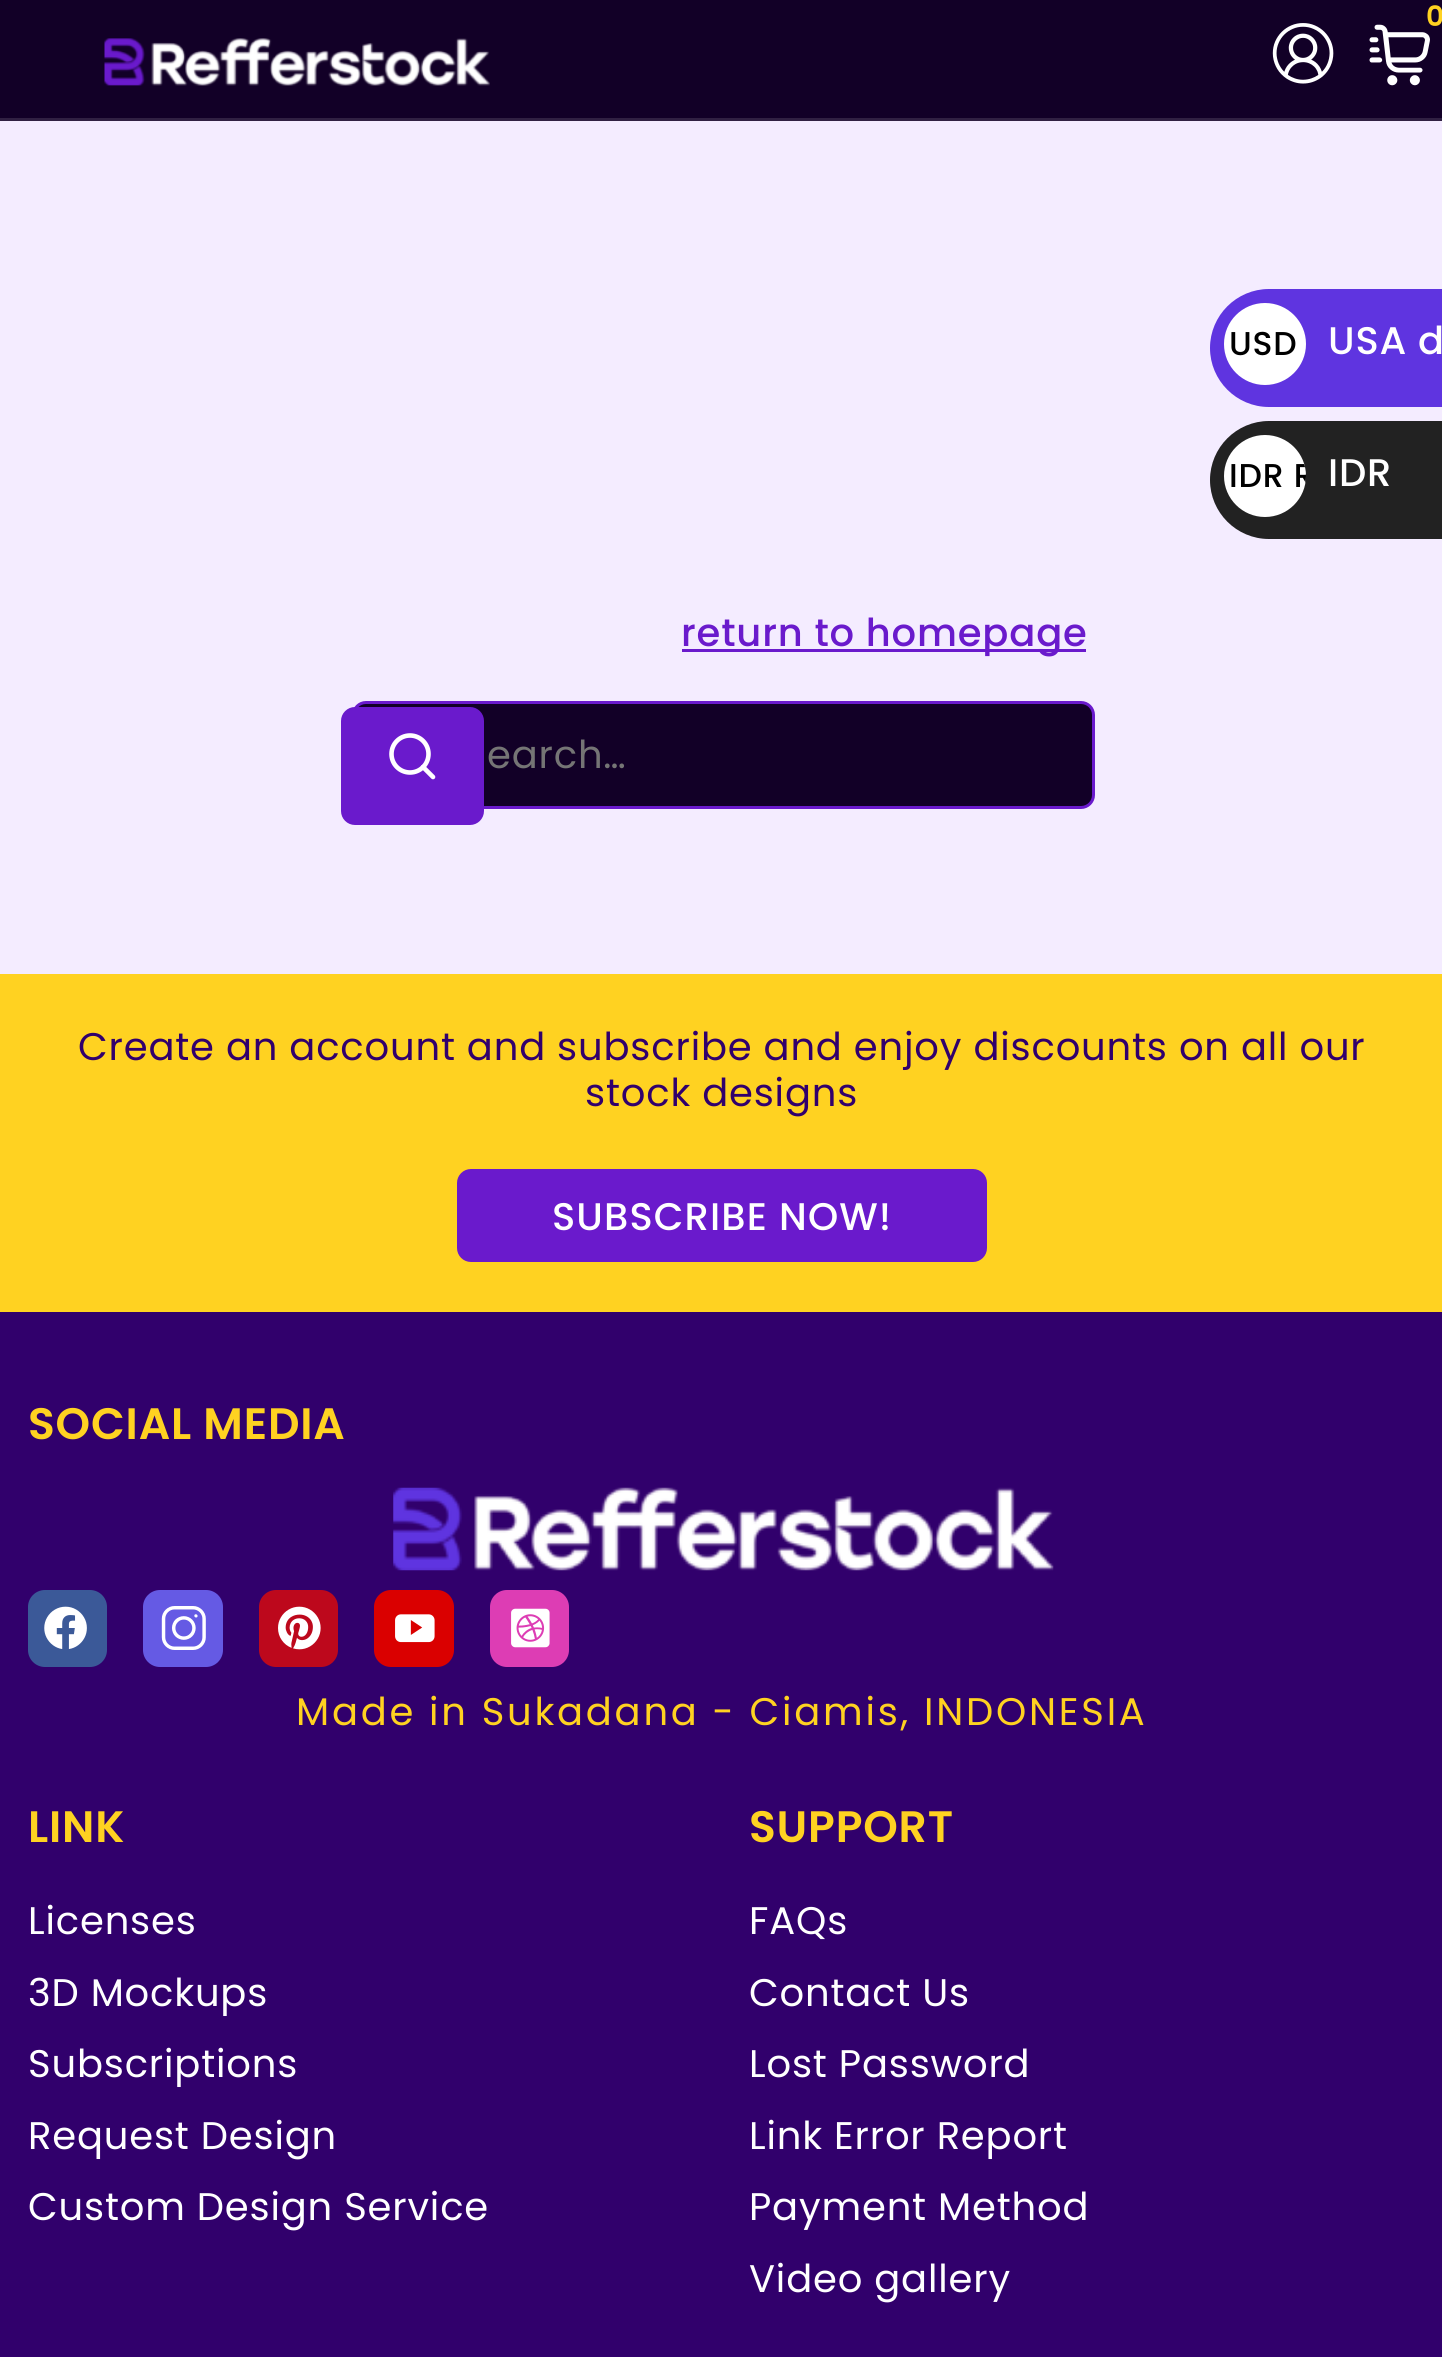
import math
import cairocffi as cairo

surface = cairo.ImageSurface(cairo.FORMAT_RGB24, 1442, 2357)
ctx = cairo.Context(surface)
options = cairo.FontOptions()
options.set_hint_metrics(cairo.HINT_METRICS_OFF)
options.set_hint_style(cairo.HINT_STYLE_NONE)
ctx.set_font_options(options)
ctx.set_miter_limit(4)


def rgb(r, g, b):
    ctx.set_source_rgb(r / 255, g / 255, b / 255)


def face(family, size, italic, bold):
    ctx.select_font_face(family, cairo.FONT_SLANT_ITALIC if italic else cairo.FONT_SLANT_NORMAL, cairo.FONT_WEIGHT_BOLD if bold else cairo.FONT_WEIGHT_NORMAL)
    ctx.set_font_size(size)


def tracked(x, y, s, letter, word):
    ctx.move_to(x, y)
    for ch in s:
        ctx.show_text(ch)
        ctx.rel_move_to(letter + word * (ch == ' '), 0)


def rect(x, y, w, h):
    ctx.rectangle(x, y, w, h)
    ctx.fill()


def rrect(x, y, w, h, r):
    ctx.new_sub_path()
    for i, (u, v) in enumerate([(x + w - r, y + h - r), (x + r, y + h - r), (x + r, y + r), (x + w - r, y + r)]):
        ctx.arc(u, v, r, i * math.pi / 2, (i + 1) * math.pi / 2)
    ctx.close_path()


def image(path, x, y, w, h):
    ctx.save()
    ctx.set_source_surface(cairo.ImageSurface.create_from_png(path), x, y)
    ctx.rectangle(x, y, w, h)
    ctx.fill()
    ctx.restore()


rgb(244, 236, 255)
ctx.paint()
rgb(18, 0, 39)
rect(0, 0, 1442, 118)
rgb(48, 32, 66)
rect(0, 118, 1442, 3)
image('image0.png', 1369, 24, 61, 62)
face('Poppins SemiBold', 28, 0, 0)
rgb(255, 210, 33)
tracked(1426, 26, '0', 0.82, 0)
image('image1.png', 1272, 23, 62, 61)
image('image2.png', 104, 38, 386, 48)
rgb(95, 52, 224)
ctx.new_path()
ctx.move_to(1269, 289)
ctx.line_to(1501, 289)
ctx.line_to(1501, 407)
ctx.line_to(1269, 407)
ctx.curve_to(1236.5, 407, 1210, 380.5, 1210, 348)
ctx.curve_to(1210, 315.5, 1236.5, 289, 1269, 289)
ctx.close_path()
ctx.fill()
rgb(255, 255, 255)
ctx.arc(1265, 344, 41, 0, 2 * math.pi)
ctx.fill()
face('Poppins Medium', 33, 0, 0)
rgb(0, 0, 0)
tracked(1229, 355, 'USD', 0.82, 0)
face('Poppins Medium', 38.5, 0, 0)
rgb(255, 255, 255)
tracked(1328, 354, 'USA d', 0.82, 0)
rgb(34, 34, 34)
ctx.new_path()
ctx.move_to(1269, 421)
ctx.line_to(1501, 421)
ctx.line_to(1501, 539)
ctx.line_to(1269, 539)
ctx.curve_to(1236.5, 539, 1210, 512.5, 1210, 480)
ctx.curve_to(1210, 447.5, 1236.5, 421, 1269, 421)
ctx.close_path()
ctx.fill()
rgb(255, 255, 255)
ctx.arc(1265, 476, 41, 0, 2 * math.pi)
ctx.fill()
ctx.save()
rrect(1224, 435, 82, 82, 41)
ctx.clip()
face('Poppins Medium', 33, 0, 0)
rgb(0, 0, 0)
tracked(1229, 487, 'IDR R', 0.82, 0)
ctx.restore()
tracked(1328, 486, 'IDR', 0.82, 0)
rgb(106, 26, 204)
rect(682, 649, 404, 3)
tracked(681, 646, 'return to homepage', 0.82, 0)
rgb(18, 0, 39)
rrect(353.5, 702.5, 740, 105, 12.5)
ctx.fill_preserve()
rgb(106, 26, 204)
ctx.set_line_width(3)
ctx.stroke()
rrect(341, 707, 143, 118, 14)
ctx.fill()
ctx.arc(410, 754, 18.5, 0, 2 * math.pi)
rgb(255, 255, 255)
ctx.set_line_width(4.6)
ctx.stroke()
ctx.new_path()
ctx.move_to(433, 777)
ctx.line_to(423, 767)
ctx.set_line_cap(cairo.LINE_CAP_ROUND)
ctx.set_line_join(cairo.LINE_JOIN_ROUND)
ctx.stroke()
face('Poppins', 38.5, 0, 0)
rgb(117, 117, 117)
tracked(487, 768, 'earch…', 0.82, 0)
rgb(255, 210, 33)
rect(0, 974, 1442, 338)
rgb(49, 0, 108)
tracked(78, 1060, 'Create an account and subscribe and enjoy discounts on all our', 0.82, 0)
tracked(585, 1106, 'stock designs', 0.82, 0)
rgb(106, 26, 204)
rrect(457, 1169, 530, 93, 14)
ctx.fill()
face('Poppins Medium', 38.5, 0, 0)
rgb(255, 255, 255)
tracked(552, 1230, 'SUBSCRIBE NOW!', 1.1, 0)
rgb(49, 0, 108)
rect(0, 1312, 1442, 1045)
face('Poppins SemiBold', 44, 0, 0)
rgb(255, 210, 33)
tracked(28, 1439, 'SOCIAL MEDIA', 0.82, 0)
image('image3.png', 393, 1487, 661, 84)
rgb(59, 89, 152)
rrect(28, 1590, 79, 77, 17)
ctx.fill()
image('image4.png', 44, 1606, 43, 43)
rgb(101, 90, 228)
rrect(143, 1590, 80, 77, 17)
ctx.fill()
image('image5.png', 161, 1606, 45, 44)
rgb(189, 8, 28)
rrect(259, 1590, 79, 77, 17)
ctx.fill()
image('image6.png', 278, 1606, 43, 44)
rgb(218, 0, 0)
rrect(374, 1590, 80, 77, 17)
ctx.fill()
image('image7.png', 395, 1614, 40, 29)
rgb(221, 61, 180)
rrect(490, 1590, 79, 77, 17)
ctx.fill()
image('image8.png', 511, 1608, 39, 40)
face('Poppins', 38.5, 0, 0)
rgb(255, 210, 33)
tracked(296, 1725, 'Made in Sukadana - Ciamis, INDONESIA', 2.75, 0)
face('Poppins SemiBold', 44, 0, 0)
tracked(28, 1842, 'LINK', 0.82, 0)
face('Poppins', 38.5, 0, 0)
rgb(255, 255, 255)
tracked(28, 1934, 'Licenses', 0.82, 0)
tracked(28, 2006, '3D Mockups', 0.82, 0)
tracked(28, 2077, 'Subscriptions', 0.82, 0)
tracked(28, 2149, 'Request Design', 0.82, 0)
tracked(28, 2220, 'Custom Design Service', 0.82, 0)
face('Poppins SemiBold', 44, 0, 0)
rgb(255, 210, 33)
tracked(749, 1842, 'SUPPORT', 0.82, 0)
face('Poppins', 38.5, 0, 0)
rgb(255, 255, 255)
tracked(749, 1934, 'FAQs', 0.82, 0)
tracked(749, 2006, 'Contact Us', 0.82, 0)
tracked(749, 2077, 'Lost Password', 0.82, 0)
tracked(749, 2149, 'Link Error Report', 0.82, 0)
tracked(749, 2220, 'Payment Method', 0.82, 0)
tracked(749, 2292, 'Video gallery', 0.82, 0)
surface.write_to_png('render.png')
